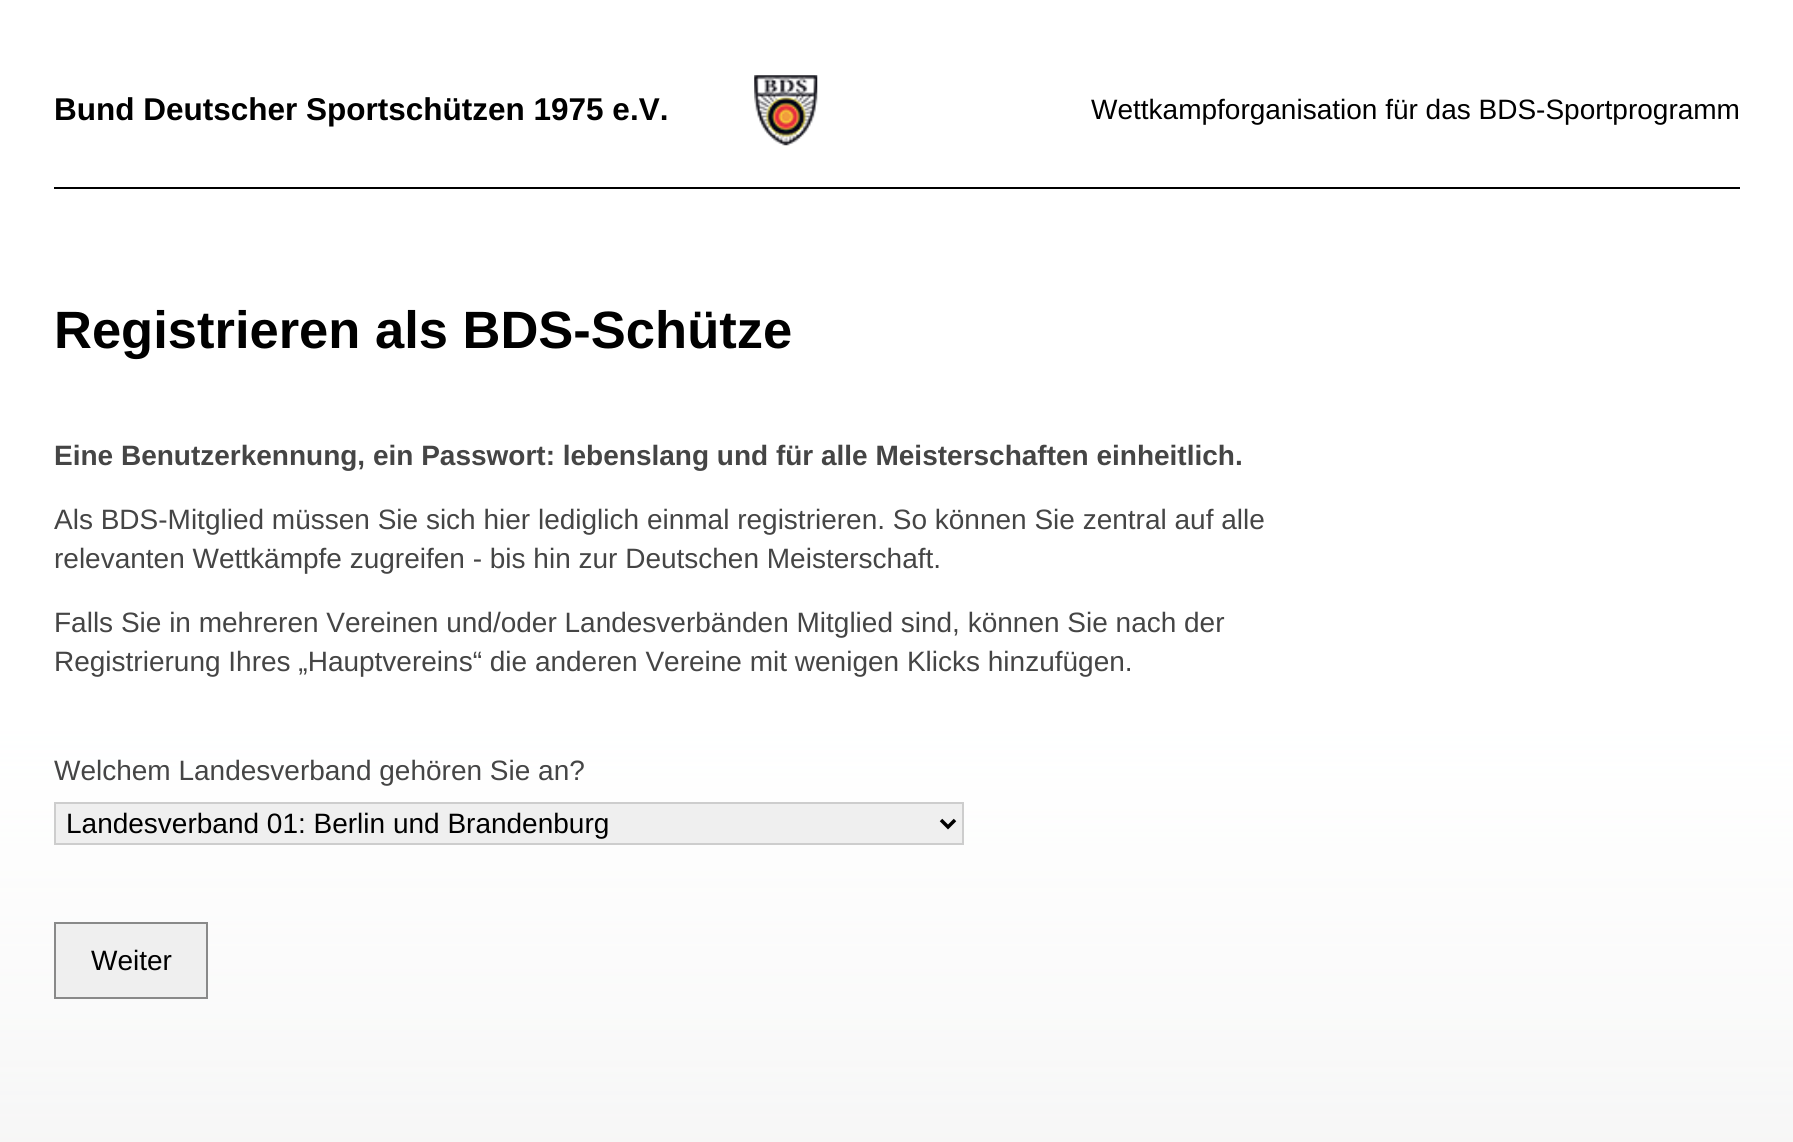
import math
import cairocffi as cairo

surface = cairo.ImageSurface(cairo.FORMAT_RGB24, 1793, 1142)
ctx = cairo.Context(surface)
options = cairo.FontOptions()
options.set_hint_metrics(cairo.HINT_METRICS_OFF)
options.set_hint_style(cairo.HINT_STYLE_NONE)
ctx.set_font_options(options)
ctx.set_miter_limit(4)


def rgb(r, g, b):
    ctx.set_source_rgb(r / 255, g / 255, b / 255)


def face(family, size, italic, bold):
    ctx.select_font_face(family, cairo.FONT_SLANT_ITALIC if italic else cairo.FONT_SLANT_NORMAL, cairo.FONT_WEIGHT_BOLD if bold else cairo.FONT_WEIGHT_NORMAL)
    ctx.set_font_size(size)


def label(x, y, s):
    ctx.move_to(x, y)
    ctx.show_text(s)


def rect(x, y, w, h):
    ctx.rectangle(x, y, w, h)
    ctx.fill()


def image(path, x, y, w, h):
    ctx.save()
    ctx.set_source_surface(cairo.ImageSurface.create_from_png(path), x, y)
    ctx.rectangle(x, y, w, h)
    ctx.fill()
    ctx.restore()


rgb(255, 255, 255)
ctx.paint()
image('image0.png', 0, 0, 1793, 1142)
rgb(0, 0, 0)
rect(54, 187, 1686, 2)
face('Liberation Sans', 31.5, 0, 1)
label(54, 120, 'Bund Deutscher Sportschützen 1975 e.V.')
image('image1.png', 754, 75, 64, 71)
face('Liberation Sans', 28, 0, 0)
label(1091, 119, 'Wettkampforganisation für das BDS-Sportprogramm')
face('Liberation Sans', 52.5, 0, 1)
label(54, 348, 'Registrieren als BDS-Schütze')
face('Liberation Sans', 28, 0, 1)
rgb(69, 69, 69)
label(54, 465, 'Eine Benutzerkennung, ein Passwort: lebenslang und für alle Meisterschaften einheitlich.')
face('Liberation Sans', 28, 0, 0)
label(54, 529, 'Als BDS-Mitglied müssen Sie sich hier lediglich einmal registrieren. So können Sie zentral auf alle')
label(54, 568, 'relevanten Wettkämpfe zugreifen - bis hin zur Deutschen Meisterschaft.')
label(54, 632, 'Falls Sie in mehreren Vereinen und/oder Landesverbänden Mitglied sind, können Sie nach der')
label(54, 671, 'Registrierung Ihres „Hauptvereins“ die anderen Vereine mit wenigen Klicks hinzufügen.')
label(54, 780, 'Welchem Landesverband gehören Sie an?')
rgb(239, 239, 239)
ctx.rectangle(55, 803, 908, 41)
ctx.fill_preserve()
rgb(205, 205, 205)
ctx.stroke()
ctx.new_path()
ctx.move_to(941, 820)
ctx.line_to(948, 827)
ctx.line_to(955, 820)
rgb(0, 0, 0)
ctx.set_line_width(3.5)
ctx.stroke()
label(66, 833, 'Landesverband 01: Berlin und Brandenburg')
rgb(239, 239, 239)
ctx.rectangle(55, 923, 152, 75)
ctx.fill_preserve()
rgb(137, 137, 137)
ctx.set_line_width(2)
ctx.stroke()
rgb(0, 0, 0)
label(91, 970, 'Weiter')
surface.write_to_png('render.png')
